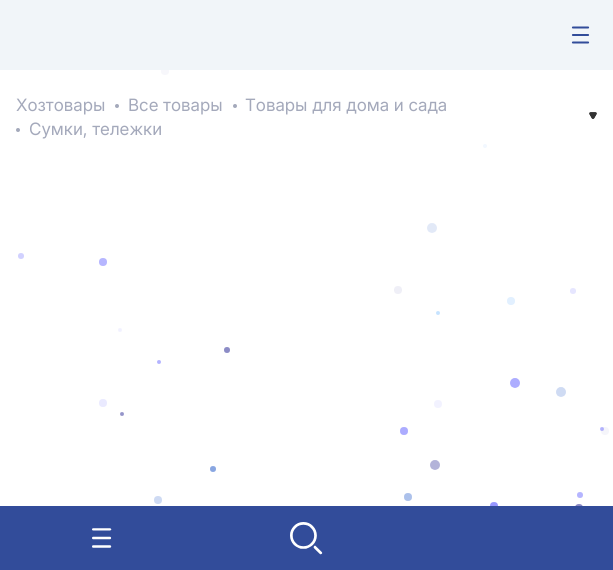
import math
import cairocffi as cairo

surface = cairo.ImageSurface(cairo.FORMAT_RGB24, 613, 570)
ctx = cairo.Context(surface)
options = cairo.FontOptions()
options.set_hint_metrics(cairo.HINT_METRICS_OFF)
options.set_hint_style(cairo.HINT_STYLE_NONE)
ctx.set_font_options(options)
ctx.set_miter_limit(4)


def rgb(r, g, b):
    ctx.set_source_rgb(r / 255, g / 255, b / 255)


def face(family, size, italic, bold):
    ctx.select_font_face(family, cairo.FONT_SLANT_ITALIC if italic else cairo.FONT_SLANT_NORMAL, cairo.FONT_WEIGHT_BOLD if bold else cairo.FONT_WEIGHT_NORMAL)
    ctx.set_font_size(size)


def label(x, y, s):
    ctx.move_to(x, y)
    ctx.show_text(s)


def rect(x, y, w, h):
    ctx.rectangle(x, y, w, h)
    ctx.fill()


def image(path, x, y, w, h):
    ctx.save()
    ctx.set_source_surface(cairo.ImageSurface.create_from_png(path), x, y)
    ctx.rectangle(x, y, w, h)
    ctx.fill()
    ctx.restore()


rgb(255, 255, 255)
ctx.paint()
rgb(241, 245, 249)
rect(0, 0, 613, 70)
image('image0.png', 571, 26, 19, 18)
image('image1.png', 18, 70, 591, 436)
face('Inter', 17, 0, 0)
rgb(164, 169, 187)
label(16, 111, 'Хозтовары')
ctx.new_path()
ctx.arc(117, 106, 2, 0, 2 * math.pi)
ctx.fill()
label(128, 111, 'Все товары')
ctx.new_path()
ctx.arc(235, 106, 2, 0, 2 * math.pi)
ctx.fill()
label(245, 111, 'Товары для дома и сада')
image('image2.png', 589, 112, 8, 7)
image('image3.png', 589, 112, 8, 7)
ctx.arc(18, 130, 2, 0, 2 * math.pi)
ctx.fill()
label(29, 135, 'Сумки, тележки')
rgb(50, 76, 154)
rect(0, 506, 613, 64)
image('image4.png', 92, 528, 20, 20)
image('image5.png', 290, 522, 33, 33)
surface.write_to_png('render.png')
